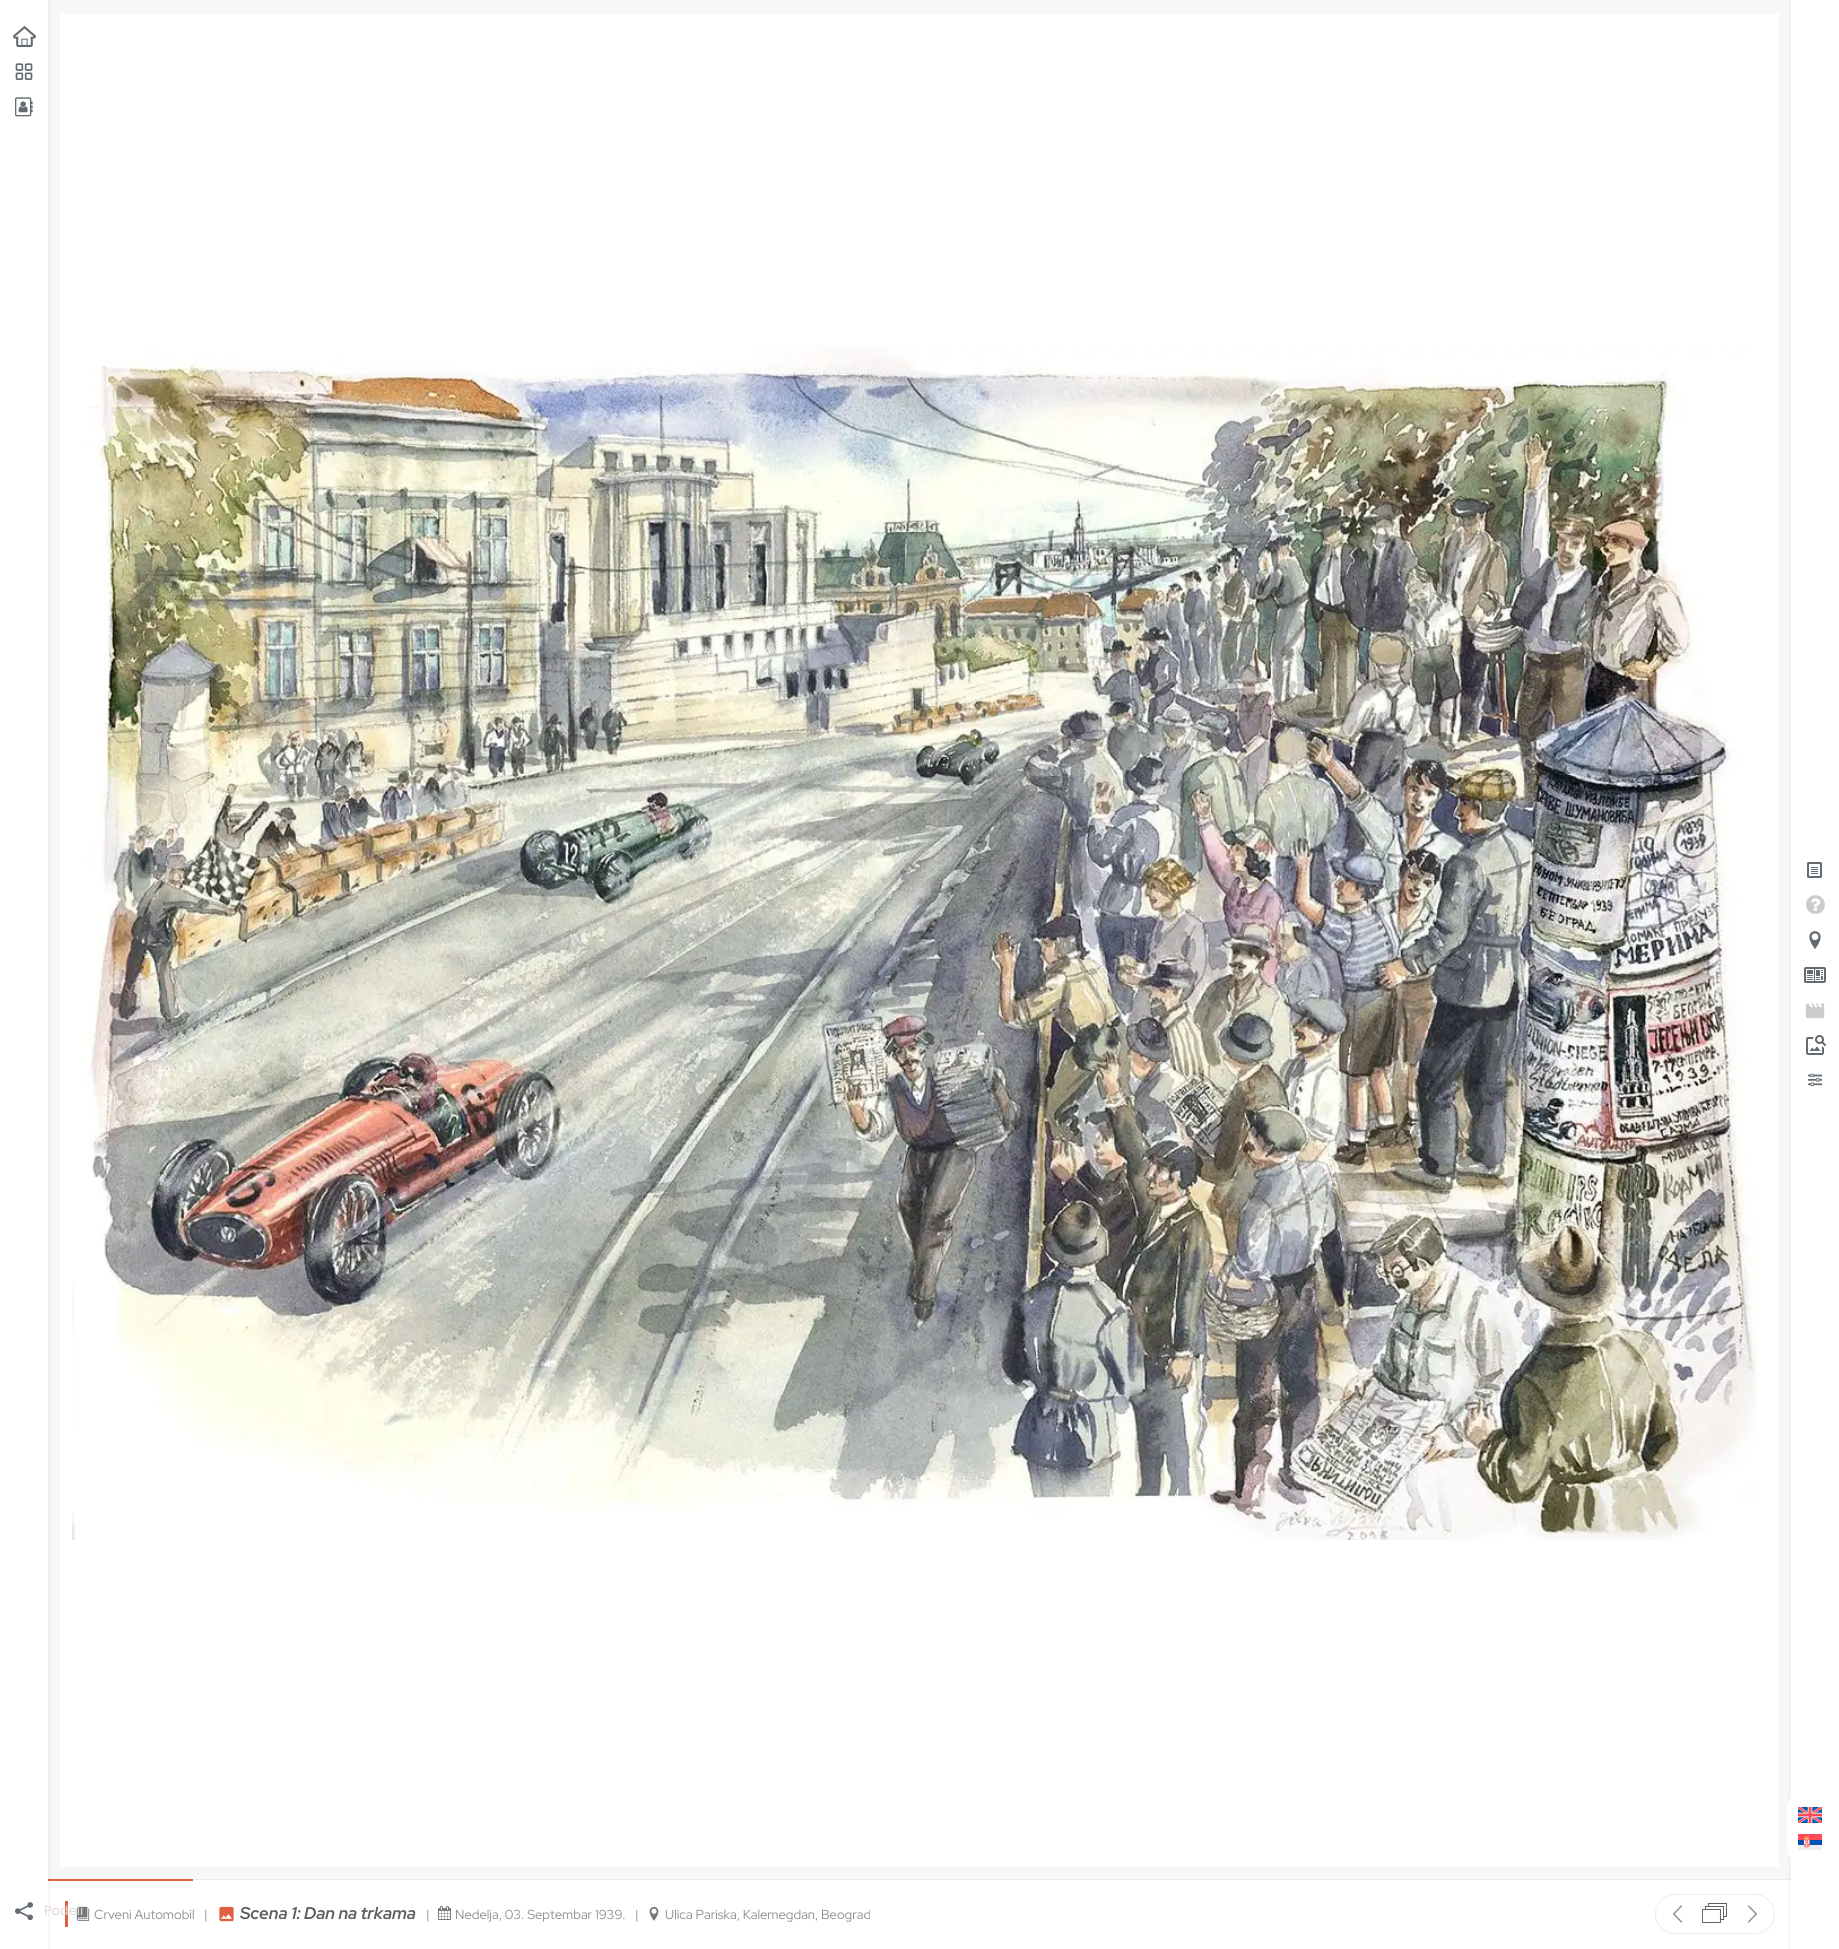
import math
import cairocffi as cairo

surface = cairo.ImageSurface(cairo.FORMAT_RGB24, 1839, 1949)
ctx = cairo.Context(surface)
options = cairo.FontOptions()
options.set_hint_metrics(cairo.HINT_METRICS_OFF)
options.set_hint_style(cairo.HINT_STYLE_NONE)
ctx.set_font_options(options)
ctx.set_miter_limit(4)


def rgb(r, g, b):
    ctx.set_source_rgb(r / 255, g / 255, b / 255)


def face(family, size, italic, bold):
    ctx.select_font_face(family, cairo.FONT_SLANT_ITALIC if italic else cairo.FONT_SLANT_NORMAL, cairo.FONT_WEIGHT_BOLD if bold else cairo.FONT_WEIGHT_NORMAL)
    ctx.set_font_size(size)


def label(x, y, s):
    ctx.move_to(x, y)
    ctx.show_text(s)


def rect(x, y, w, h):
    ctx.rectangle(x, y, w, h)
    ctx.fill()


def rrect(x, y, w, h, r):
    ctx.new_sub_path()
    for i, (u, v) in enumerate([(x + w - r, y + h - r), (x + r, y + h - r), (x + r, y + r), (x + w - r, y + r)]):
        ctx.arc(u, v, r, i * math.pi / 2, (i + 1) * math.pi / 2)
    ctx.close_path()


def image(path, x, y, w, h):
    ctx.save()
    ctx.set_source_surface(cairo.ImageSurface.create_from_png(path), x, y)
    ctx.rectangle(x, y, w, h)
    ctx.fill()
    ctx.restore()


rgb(247, 247, 247)
ctx.paint()
rgb(255, 255, 255)
rect(48, 1880, 1743, 69)
rgb(235, 235, 235)
rect(193, 1879, 1598, 1)
gradient = cairo.LinearGradient(1782, 975, 1794, 975)
gradient.add_color_stop_rgba(0, 0, 0, 0, 0)
gradient.add_color_stop_rgba(1, 0, 0, 0, 0.04)
ctx.set_source(gradient)
rect(1788, 0, 3, 1949)
rgb(255, 255, 255)
rect(1791, 0, 48, 1949)
rrect(1787, 1796, 46, 65, 11)
ctx.fill()
image('image0.png', 1798, 1807, 24, 16)
image('image1.png', 1798, 1834, 24, 16)
rect(0, 0, 48, 1949)
rgb(226, 96, 66)
rect(48, 1879, 145, 2)
gradient = cairo.LinearGradient(45, 975, 57, 975)
gradient.add_color_stop_rgba(0, 0, 0, 0, 0.04)
gradient.add_color_stop_rgba(1, 0, 0, 0, 0)
ctx.set_source(gradient)
rect(48, 0, 3, 1949)
image('image2.png', 13, 25, 23, 22)
image('image3.png', 15, 63, 18, 17)
image('image4.png', 15, 97, 18, 20)
image('image5.png', 15, 1902, 18, 19)
rgb(226, 96, 66)
rect(65, 1901, 3, 26)
image('image7.png', 76, 1906, 14, 15)
face('Poppins', 13, 0, 0)
rgb(228, 215, 212)
label(44, 1915, 'Podeli')
rgb(255, 255, 255)
rect(60, 14, 1719, 1853)
image('image6.png', 72, 345, 1685, 1195)
face('Red Hat Display', 13, 0, 0)
rgb(139, 143, 147)
label(94, 1919, 'Crveni Automobil')
label(204, 1919, '|')
image('image8.png', 219, 1906, 15, 16)
face('Red Hat Display', 17, 1, 1)
rgb(91, 95, 99)
label(240, 1919, 'Scena 1:')
label(304, 1919, 'Dan na trkama')
face('Red Hat Display', 13, 0, 0)
rgb(139, 143, 147)
label(426, 1919, '|')
image('image9.png', 438, 1906, 13, 14)
label(455, 1919, 'Nedelja, 03. Septembar 1939.')
label(635, 1919, '|')
image('image10.png', 649, 1906, 10, 15)
label(665, 1919, 'Ulica Pariska, Kalemegdan, Beograd')
rrect(1655.5, 1894.5, 119, 39, 19.5)
rgb(235, 236, 237)
ctx.set_line_width(1)
ctx.stroke()
image('image11.png', 1673, 1905, 9, 18)
image('image12.png', 1702, 1903, 25, 20)
image('image13.png', 1748, 1905, 9, 18)
image('image14.png', 1807, 862, 15, 16)
image('image15.png', 1806, 895, 19, 19)
image('image16.png', 1809, 931, 12, 18)
image('image17.png', 1804, 967, 22, 16)
image('image18.png', 1805, 1003, 20, 16)
image('image19.png', 1806, 1035, 21, 20)
image('image20.png', 1808, 1073, 14, 13)
surface.write_to_png('render.png')
